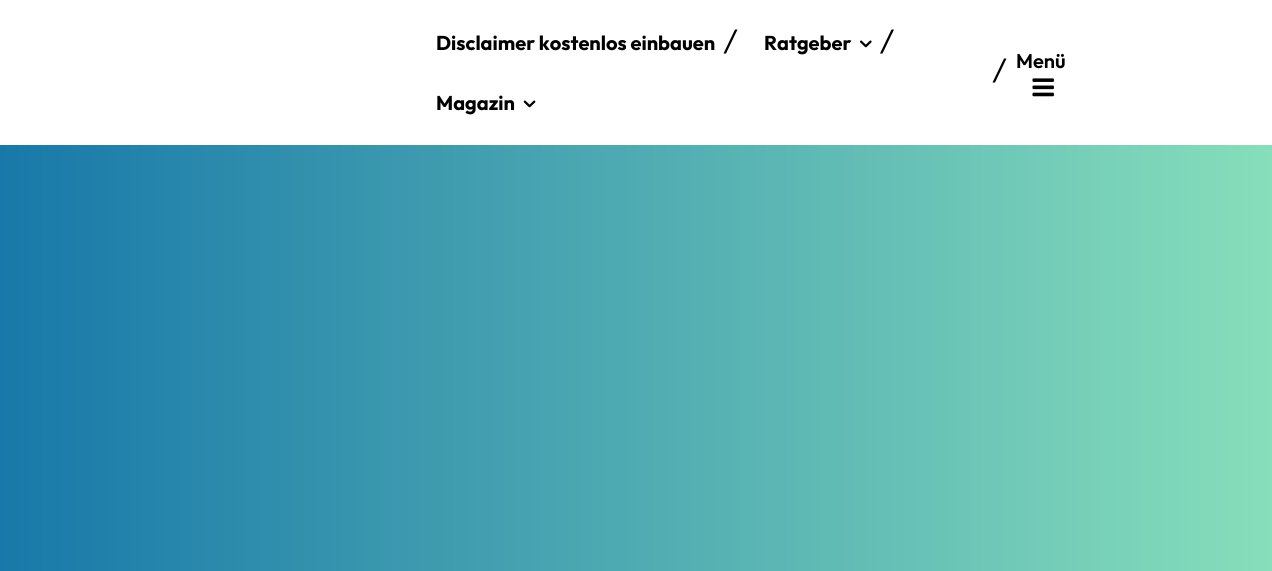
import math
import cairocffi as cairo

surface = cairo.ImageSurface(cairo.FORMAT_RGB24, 1272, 571)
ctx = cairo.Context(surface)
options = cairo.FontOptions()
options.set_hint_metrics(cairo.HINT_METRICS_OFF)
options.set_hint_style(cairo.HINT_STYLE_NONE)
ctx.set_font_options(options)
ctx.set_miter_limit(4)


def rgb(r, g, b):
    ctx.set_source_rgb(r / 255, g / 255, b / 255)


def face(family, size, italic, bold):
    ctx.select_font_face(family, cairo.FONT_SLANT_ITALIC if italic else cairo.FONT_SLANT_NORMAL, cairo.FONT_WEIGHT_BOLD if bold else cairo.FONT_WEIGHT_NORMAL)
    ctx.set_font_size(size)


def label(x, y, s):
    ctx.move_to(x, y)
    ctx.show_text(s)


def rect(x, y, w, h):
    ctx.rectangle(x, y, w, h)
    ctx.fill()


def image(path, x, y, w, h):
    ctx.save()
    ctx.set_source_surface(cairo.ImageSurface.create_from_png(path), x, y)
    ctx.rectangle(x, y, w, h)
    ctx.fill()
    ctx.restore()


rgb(255, 255, 255)
ctx.paint()
face('Outfit', 20, 0, 1)
rgb(0, 0, 0)
label(436, 50, 'Disclaimer kostenlos einbauen')
ctx.new_path()
ctx.move_to(735, 29.5)
ctx.line_to(723.5, 53.5)
ctx.line_to(726, 53.5)
ctx.line_to(737.5, 29.5)
ctx.close_path()
ctx.fill()
label(764, 50, 'Ratgeber')
image('image0.png', 860, 40, 12, 8)
ctx.new_path()
ctx.move_to(891.5, 29.5)
ctx.line_to(880, 53.5)
ctx.line_to(882.5, 53.5)
ctx.line_to(894, 29.5)
ctx.close_path()
ctx.fill()
label(436, 110, 'Magazin')
image('image1.png', 523, 100, 13, 8)
ctx.new_path()
ctx.move_to(1004, 58.5)
ctx.line_to(992.5, 82.5)
ctx.line_to(995, 82.5)
ctx.line_to(1006.5, 58.5)
ctx.close_path()
ctx.fill()
face('Outfit SemiBold', 20, 0, 0)
label(1016, 68, 'Menü')
image('image2.png', 1032, 78, 22, 19)
gradient = cairo.LinearGradient(0, 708, 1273, 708)
gradient.add_color_stop_rgba(0, 0.094, 0.471, 0.663, 1)
gradient.add_color_stop_rgba(1, 0.529, 0.871, 0.733, 1)
ctx.set_source(gradient)
rect(0, 145, 1272, 426)
surface.write_to_png('render.png')
